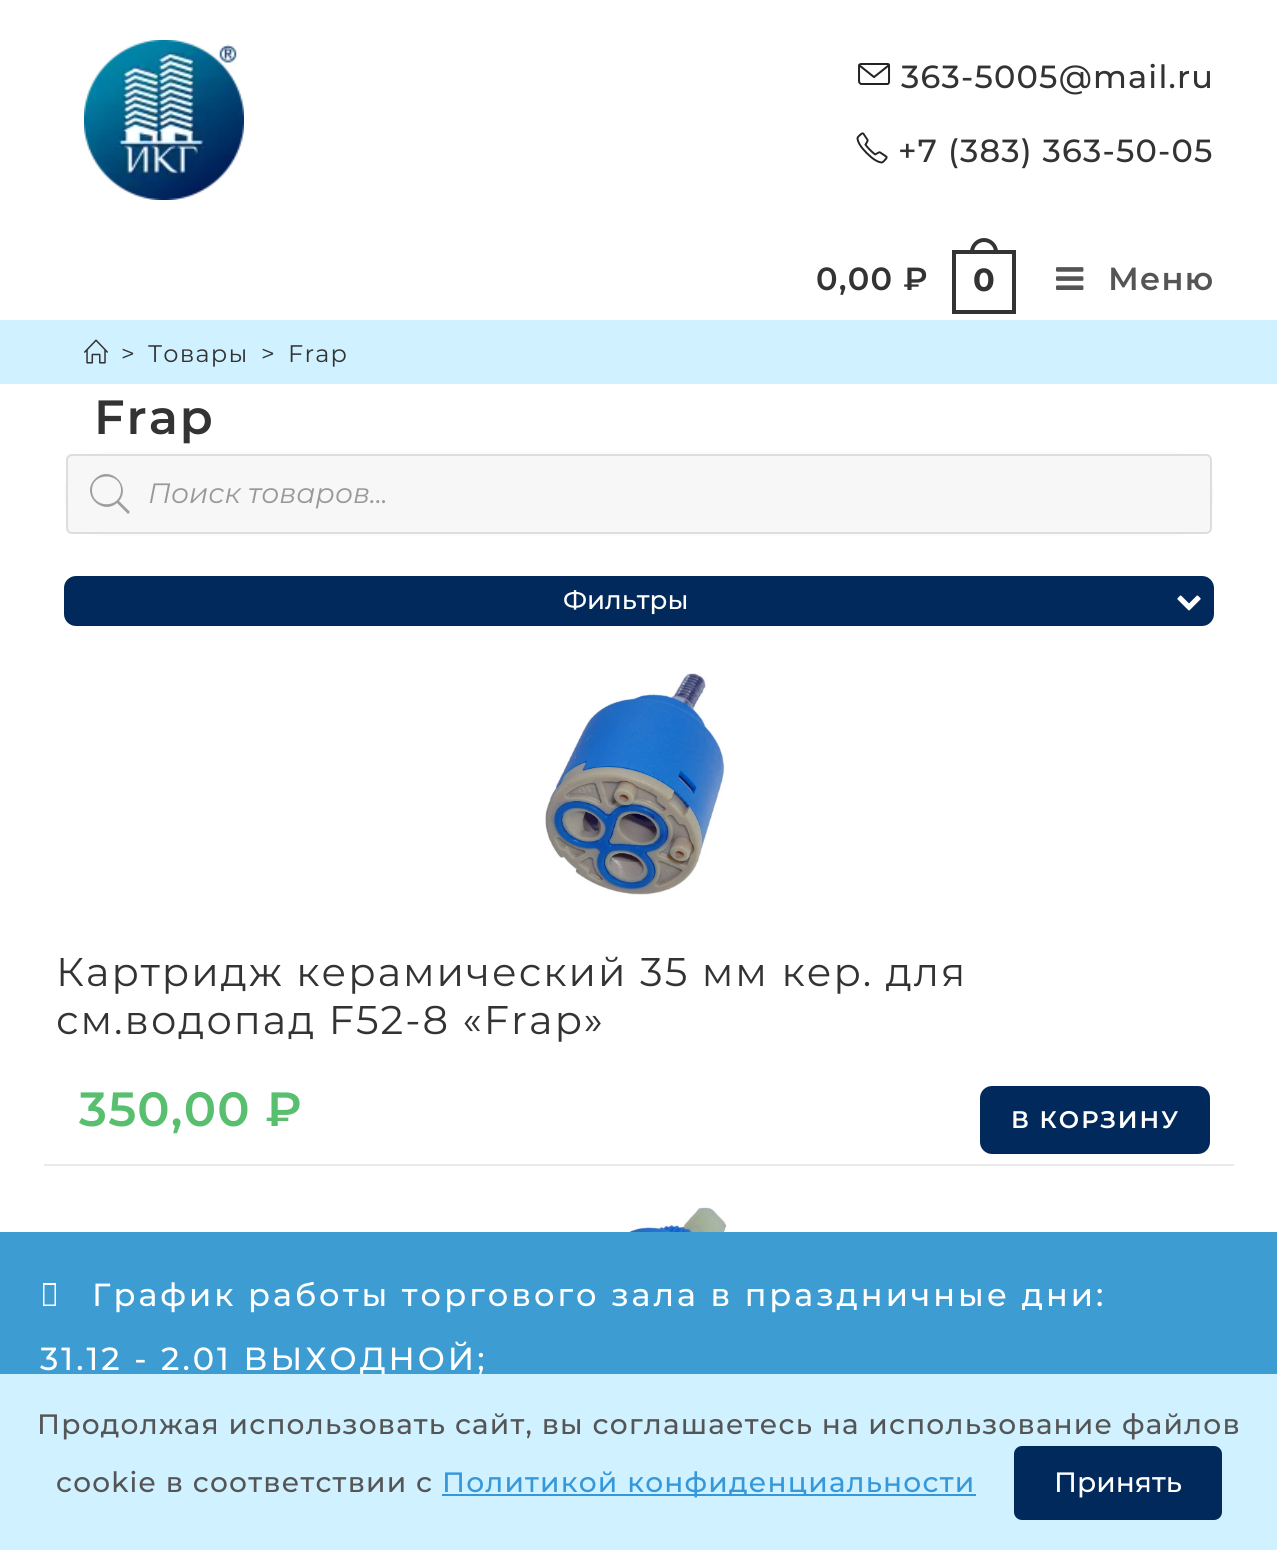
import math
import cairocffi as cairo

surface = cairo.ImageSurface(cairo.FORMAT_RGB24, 1277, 1550)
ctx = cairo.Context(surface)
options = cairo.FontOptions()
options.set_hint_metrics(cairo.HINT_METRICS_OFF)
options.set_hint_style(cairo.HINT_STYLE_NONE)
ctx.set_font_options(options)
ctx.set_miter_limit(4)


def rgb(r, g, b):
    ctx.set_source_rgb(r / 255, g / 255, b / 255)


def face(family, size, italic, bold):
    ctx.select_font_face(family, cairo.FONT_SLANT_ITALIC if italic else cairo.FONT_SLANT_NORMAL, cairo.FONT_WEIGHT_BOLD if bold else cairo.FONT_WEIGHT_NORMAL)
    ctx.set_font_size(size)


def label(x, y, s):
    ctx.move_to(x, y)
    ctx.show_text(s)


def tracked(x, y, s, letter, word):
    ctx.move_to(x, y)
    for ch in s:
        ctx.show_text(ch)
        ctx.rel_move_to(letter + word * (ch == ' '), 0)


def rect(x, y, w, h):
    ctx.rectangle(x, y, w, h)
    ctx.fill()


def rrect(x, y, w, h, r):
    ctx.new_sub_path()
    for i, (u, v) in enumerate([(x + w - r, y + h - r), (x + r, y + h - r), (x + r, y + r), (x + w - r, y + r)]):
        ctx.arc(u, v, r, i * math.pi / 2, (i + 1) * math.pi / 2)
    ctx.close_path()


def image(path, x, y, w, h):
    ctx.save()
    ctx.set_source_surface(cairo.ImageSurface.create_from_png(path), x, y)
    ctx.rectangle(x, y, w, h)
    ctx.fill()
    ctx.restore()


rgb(255, 255, 255)
ctx.paint()
face('Montserrat SemiBold', 48, 0, 0)
rgb(51, 51, 51)
tracked(94, 434, 'Frap', 2, 0)
ctx.save()
ctx.rectangle(0, 320, 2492, 64)
ctx.clip()
ctx.rectangle(-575, -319, 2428, 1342)
rgb(208, 241, 255)
ctx.set_line_width(1278)
ctx.stroke()
ctx.restore()
image('image0.png', 84, 40, 160, 160)
image('image1.png', 858, 63, 33, 22)
face('Montserrat Medium', 32, 0, 0)
tracked(901, 88, '363-5005@mail.ru', 1.2, 0)
image('image2.png', 856, 132, 32, 32)
tracked(898, 162, '+7 (383) 363-50-05', 1.2, 0)
face('Montserrat SemiBold', 32, 0, 0)
tracked(816, 290, '0,00 ₽', 1.2, 0)
ctx.rectangle(954, 252, 60, 60)
ctx.set_line_width(4)
ctx.stroke()
ctx.set_fill_rule(cairo.FILL_RULE_EVEN_ODD)
ctx.new_path()
ctx.move_to(984, 238)
ctx.curve_to(991.5, 238, 998, 244.5, 998, 252)
ctx.line_to(998, 254)
ctx.line_to(970, 254)
ctx.line_to(970, 252)
ctx.curve_to(970, 244.5, 976.5, 238, 984, 238)
ctx.close_path()
ctx.move_to(984, 242)
ctx.curve_to(989.5, 242, 994, 246.5, 994, 252)
ctx.line_to(994, 254)
ctx.line_to(974, 254)
ctx.line_to(974, 252)
ctx.curve_to(974, 246.5, 978.5, 242, 984, 242)
ctx.close_path()
ctx.fill()
face('Montserrat', 32, 0, 1)
tracked(973, 291, '0', 1.2, 0)
image('image3.png', 1056, 267, 28, 23)
face('Montserrat SemiBold', 32, 0, 0)
rgb(85, 85, 85)
tracked(1108, 290, 'Меню', 1.2, 0)
rgb(208, 241, 255)
rect(64, 320, 1150, 64)
image('image4.png', 84, 339, 24, 25)
face('Montserrat', 24, 0, 0)
rgb(51, 51, 51)
tracked(121, 362, '>', 1.2, 0)
tracked(148, 362, 'Товары', 1.2, 0)
tracked(261, 362, '>', 1.2, 0)
tracked(288, 362, 'Frap', 1.2, 0)
rrect(65, 453, 1148, 82, 41)
rgb(251, 251, 251)
ctx.set_line_width(2)
ctx.stroke()
rgb(247, 247, 247)
rrect(67, 455, 1144, 78, 5)
ctx.fill_preserve()
rgb(221, 221, 221)
ctx.stroke()
rgb(158, 158, 158)
ctx.set_fill_rule(cairo.FILL_RULE_WINDING)
ctx.new_path()
ctx.move_to(130, 512)
ctx.line_to(119, 501)
ctx.curve_to(132, 486, 110, 464, 95, 479)
ctx.curve_to(80, 494, 102, 516, 117, 503)
ctx.line_to(128, 514)
ctx.close_path()
ctx.move_to(92, 490)
ctx.curve_to(92, 472, 121, 472, 121, 490)
ctx.curve_to(121, 509, 92, 509, 92, 490)
ctx.close_path()
ctx.fill()
face('Montserrat', 28, 1, 0)
rgb(153, 153, 153)
label(148, 503, 'Поиск товаров...')
rgb(1, 41, 91)
rrect(64, 576, 1150, 50, 12)
ctx.fill()
face('Montserrat Medium', 26, 0, 0)
rgb(255, 255, 255)
label(563, 609, 'Фильтры')
image('image5.png', 1177, 595, 24, 16)
rgb(234, 234, 234)
rect(44, 1164, 1190, 2)
image('image6.png', 545, 673, 180, 222)
face('Montserrat', 40, 0, 0)
rgb(51, 51, 51)
tracked(56, 986, 'Картридж керамический 35 мм кер. для', 2, 0)
tracked(56, 1034, 'см.водопад F52-8 «Frap»', 2, 0)
face('Montserrat SemiBold', 48, 0, 0)
rgb(87, 191, 109)
tracked(79, 1126, '350,00 ₽', 1.2, 0)
rgb(1, 41, 91)
rrect(983, 1089, 224, 62, 9)
ctx.fill_preserve()
ctx.set_line_width(6)
ctx.stroke()
face('Montserrat SemiBold', 24, 0, 0)
rgb(255, 255, 255)
tracked(1011, 1128, 'В КОРЗИНУ', 2, 0)
image('image7.png', 540, 1207, 187, 25)
rgb(61, 156, 210)
rect(0, 1232, 1277, 142)
rgb(255, 255, 255)
ctx.new_path()
ctx.move_to(43, 1306)
ctx.line_to(43, 1283)
ctx.line_to(56, 1283)
ctx.line_to(56, 1306)
ctx.close_path()
ctx.move_to(44.5, 1304.5)
ctx.line_to(54.5, 1304.5)
ctx.line_to(54.5, 1285)
ctx.line_to(44.5, 1285)
ctx.close_path()
ctx.fill()
face('Montserrat Medium', 32, 0, 0)
tracked(92, 1306, 'График работы торгового зала в праздничные дни:', 3, 0)
tracked(40, 1370, '31.12 - 2.01 ВЫХОДНОЙ;', 3, 0)
rgb(208, 241, 255)
rect(0, 1374, 1277, 176)
face('Montserrat Medium', 28, 0, 0)
rgb(85, 85, 85)
tracked(37, 1434, 'Продолжая использовать сайт, вы соглашаетесь на использование файлов', 1.2, 0)
tracked(56, 1492, 'cookie в соответствии с', 1.2, 0)
rgb(52, 152, 219)
rect(442, 1494, 534, 2)
tracked(442, 1492, 'Политикой конфиденциальности', 1.2, 0)
rgb(1, 41, 91)
rrect(1014, 1446, 208, 74, 8)
ctx.fill()
rgb(255, 255, 255)
label(1054, 1492, 'Принять')
surface.write_to_png('render.png')
